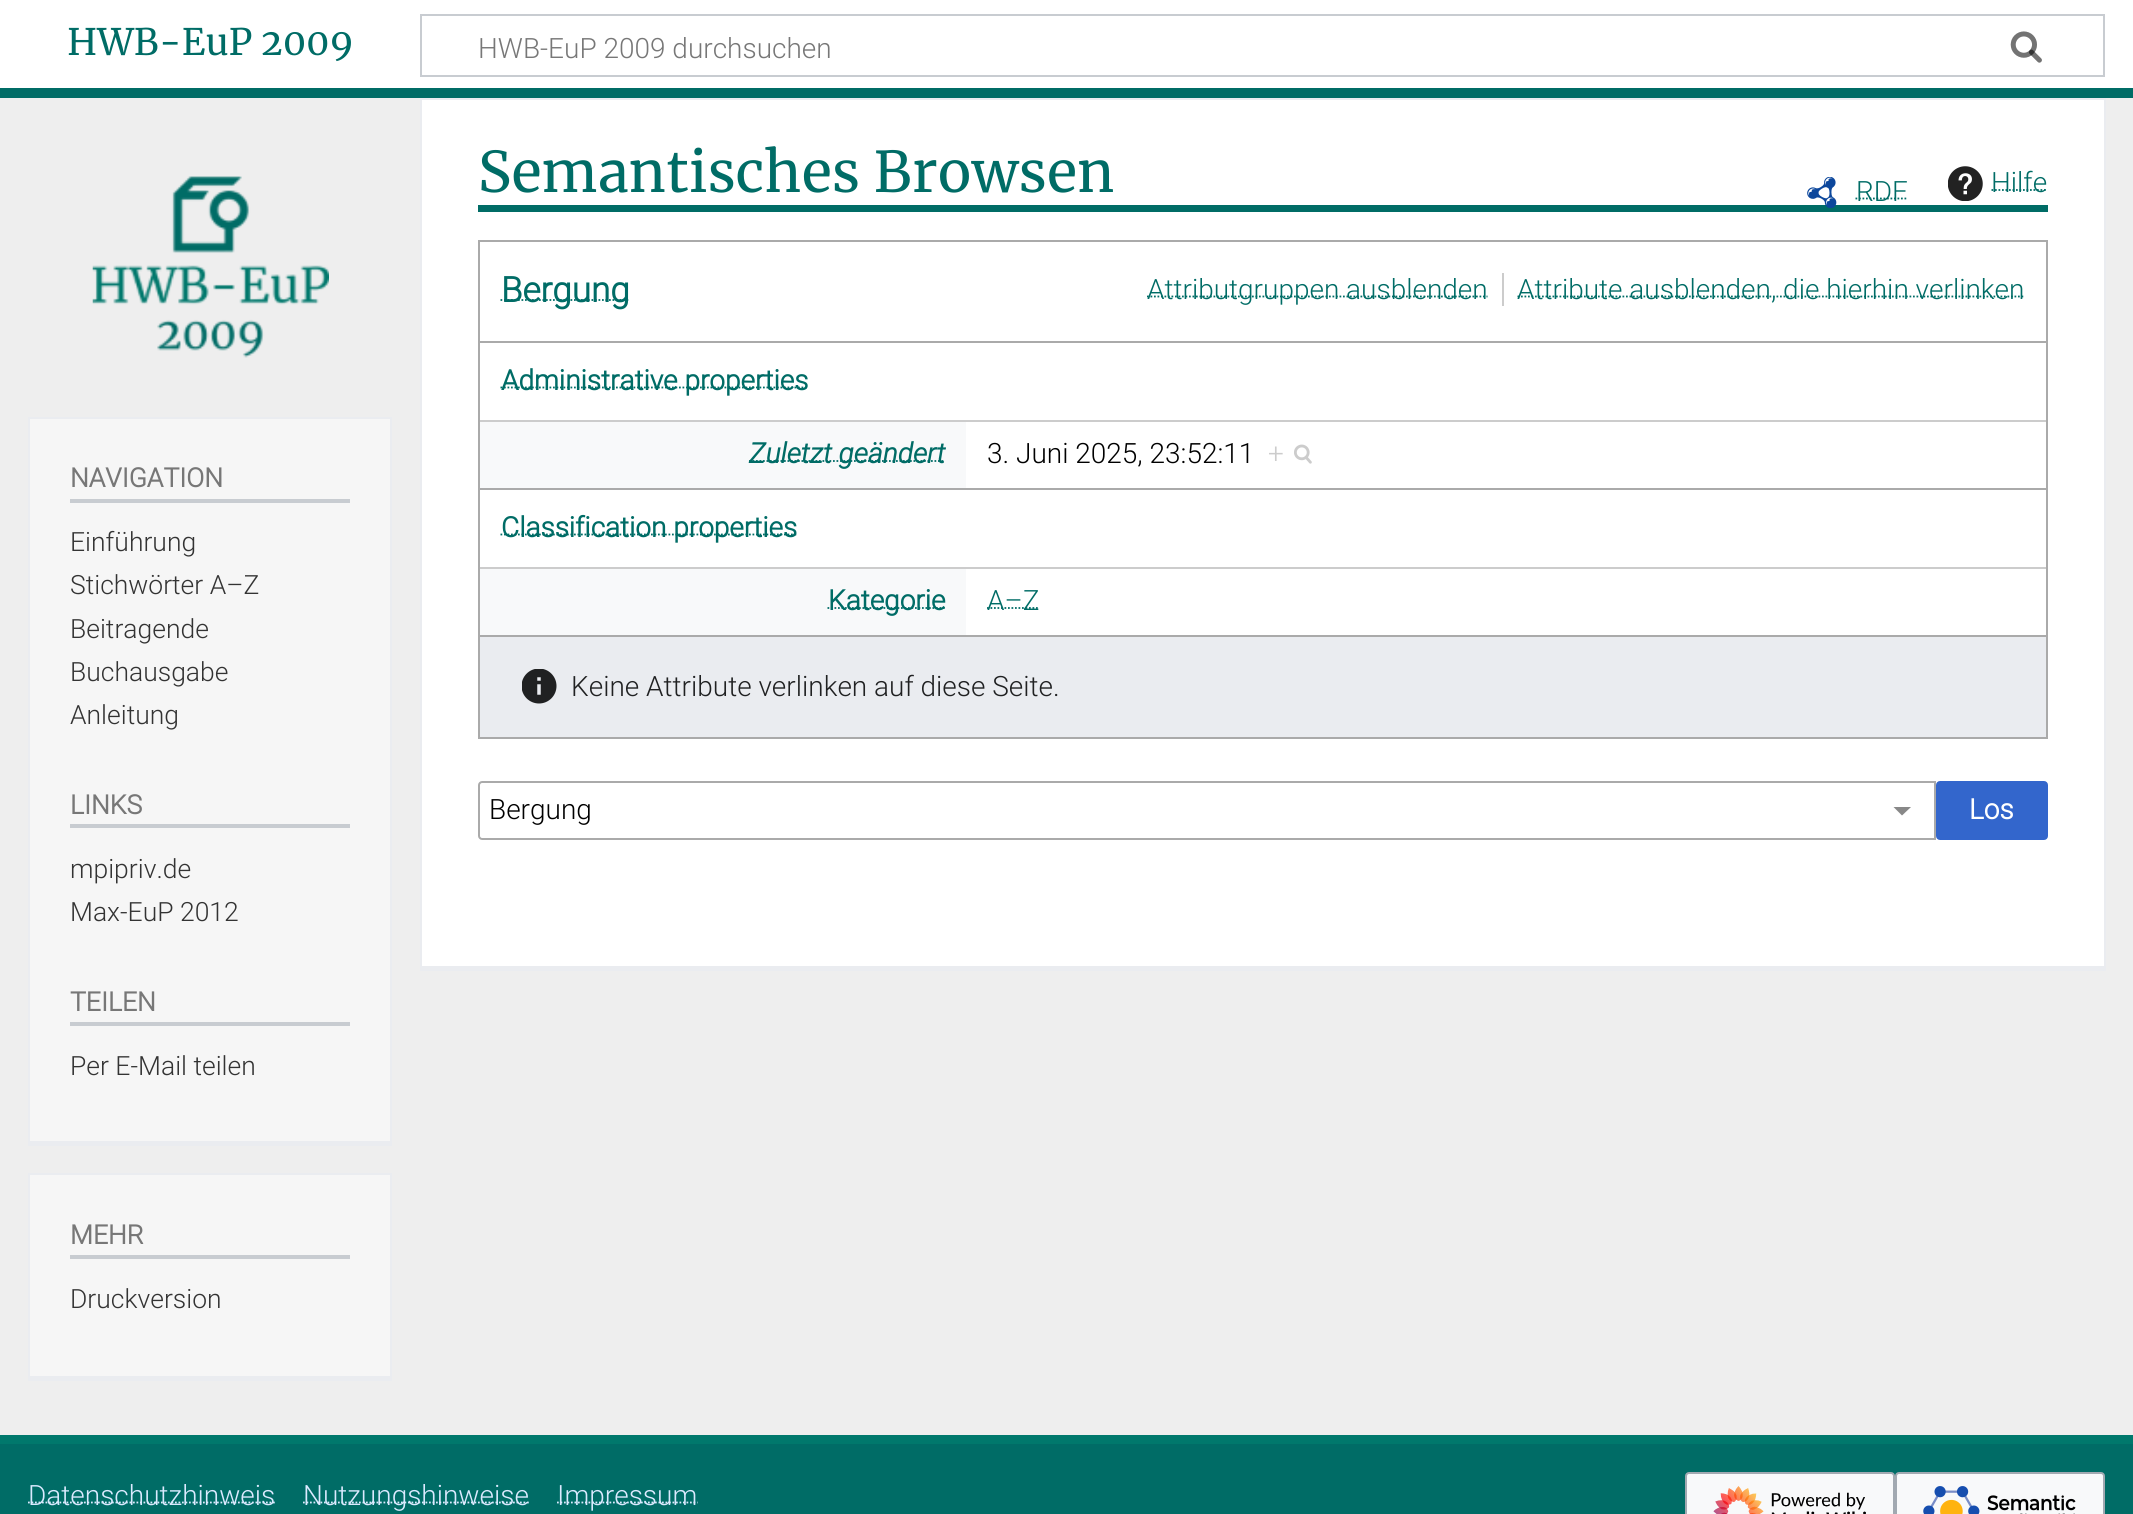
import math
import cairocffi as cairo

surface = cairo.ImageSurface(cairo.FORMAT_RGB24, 2133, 1514)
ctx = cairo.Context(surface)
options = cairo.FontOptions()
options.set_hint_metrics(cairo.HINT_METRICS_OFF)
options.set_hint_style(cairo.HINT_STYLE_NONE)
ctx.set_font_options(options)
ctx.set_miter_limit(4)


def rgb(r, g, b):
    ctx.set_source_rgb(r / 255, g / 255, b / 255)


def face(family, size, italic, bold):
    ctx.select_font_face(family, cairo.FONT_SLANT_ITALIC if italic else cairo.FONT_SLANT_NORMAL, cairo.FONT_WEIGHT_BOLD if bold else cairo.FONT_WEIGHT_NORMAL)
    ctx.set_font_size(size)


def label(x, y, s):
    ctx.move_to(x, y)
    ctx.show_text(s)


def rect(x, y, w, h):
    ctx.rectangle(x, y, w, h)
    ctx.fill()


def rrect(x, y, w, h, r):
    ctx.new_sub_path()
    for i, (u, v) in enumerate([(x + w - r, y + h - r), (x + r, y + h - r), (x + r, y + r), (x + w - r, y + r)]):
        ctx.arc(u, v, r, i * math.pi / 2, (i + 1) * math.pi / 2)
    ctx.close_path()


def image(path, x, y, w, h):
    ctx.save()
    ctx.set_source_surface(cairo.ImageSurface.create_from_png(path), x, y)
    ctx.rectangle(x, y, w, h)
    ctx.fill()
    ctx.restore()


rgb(0, 108, 102)
ctx.paint()
rgb(255, 255, 255)
rect(0, 0, 2133, 88)
face('Merriweather', 36.5, 0, 0)
rgb(0, 108, 102)
label(67, 55, 'HWB-EuP 2009')
ctx.rectangle(421, 15, 1683, 61)
rgb(200, 204, 209)
ctx.stroke()
image('image0.png', 2010, 31, 32, 32)
face('Roboto Light', 28, 0, 0)
rgb(119, 119, 119)
label(478, 58, 'HWB-EuP 2009 durchsuchen')
image('image1.png', 2010, 31, 32, 32)
rgb(238, 238, 238)
rect(0, 98, 2133, 1337)
rgb(0, 120, 108)
rect(0, 1435, 2133, 9)
image('image2.png', 92, 176, 237, 182)
rgb(246, 246, 246)
rect(30, 419, 360, 722)
rgb(234, 236, 240)
rect(28, 417, 364, 2)
rect(390, 417, 2, 729)
rect(28, 1141, 364, 5)
rect(28, 417, 2, 729)
rgb(200, 204, 209)
rect(70, 499, 280, 4)
face('Roboto', 26.5, 0, 1)
rgb(119, 119, 119)
label(70, 487, 'NAVIGATION')
face('Roboto Light', 26.5, 0, 0)
rgb(51, 51, 51)
label(70, 551, 'Einführung')
label(70, 594, 'Stichwörter A–Z')
label(70, 638, 'Beitragende')
label(70, 681, 'Buchausgabe')
label(70, 724, 'Anleitung')
rgb(200, 204, 209)
rect(70, 824, 280, 4)
face('Roboto', 26.5, 0, 1)
rgb(119, 119, 119)
label(70, 814, 'LINKS')
face('Roboto Light', 26.5, 0, 0)
rgb(51, 51, 51)
label(70, 878, 'mpipriv.de')
label(70, 921, 'Max-EuP 2012')
rgb(200, 204, 209)
rect(70, 1022, 280, 4)
face('Roboto', 26.5, 0, 1)
rgb(119, 119, 119)
label(70, 1011, 'TEILEN')
face('Roboto Light', 26.5, 0, 0)
rgb(51, 51, 51)
label(70, 1075, 'Per E-Mail teilen')
rgb(255, 255, 255)
rect(422, 100, 1682, 866)
rgb(234, 236, 240)
rect(420, 98, 1685, 2)
rect(2104, 98, 2, 873)
rect(420, 966, 1685, 5)
rect(420, 98, 2, 873)
rgb(0, 108, 102)
rect(478, 205, 1570, 7)
face('Merriweather', 56, 0, 0)
label(478, 192, 'Semantisches Browsen')
image('image3.png', 1807, 177, 30, 31)
ctx.new_path()
ctx.move_to(1855.5, 198.5)
ctx.line_to(1907.5, 198.5)
ctx.set_line_width(1.8)
ctx.set_dash([1.75, 1.75])
ctx.stroke()
face('Roboto Light', 28, 0, 0)
label(1856, 201, 'RDF')
image('image4.png', 1948, 166, 35, 35)
ctx.new_path()
ctx.move_to(1991.5, 190)
ctx.line_to(2047.5, 190)
ctx.stroke()
label(1991, 192, 'Hilfe')
ctx.rectangle(479, 241, 1568, 497)
rgb(170, 170, 170)
ctx.set_line_width(2)
ctx.set_dash([])
ctx.stroke()
rect(480, 341, 1566, 2)
ctx.new_path()
ctx.move_to(500.5, 300)
ctx.line_to(629, 300)
rgb(0, 108, 102)
ctx.set_line_width(1.8)
ctx.set_dash([1.75, 1.75])
ctx.stroke()
face('Roboto', 35, 0, 1)
label(501, 302, 'Bergung')
ctx.new_path()
ctx.move_to(1147, 296.5)
ctx.line_to(1487.5, 296.5)
ctx.stroke()
face('Roboto Light', 28, 0, 0)
label(1147, 299, 'Attributgruppen ausblenden')
ctx.new_path()
ctx.move_to(1517.5, 296.5)
ctx.line_to(2025, 296.5)
ctx.stroke()
label(1517, 299, 'Attribute ausblenden, die hierhin verlinken')
rgb(204, 204, 204)
rect(1502, 273, 2, 33)
rgb(170, 170, 170)
rect(480, 488, 1566, 2)
ctx.new_path()
ctx.move_to(500.5, 387.5)
ctx.line_to(808, 387.5)
rgb(0, 108, 102)
ctx.stroke()
face('Roboto', 28, 0, 1)
label(501, 390, 'Administrative properties')
rgb(204, 204, 204)
rect(480, 420, 1566, 2)
rgb(248, 249, 250)
rect(480, 422, 486, 66)
ctx.new_path()
ctx.move_to(749, 461)
ctx.line_to(945, 461)
rgb(0, 108, 102)
ctx.stroke()
face('Roboto', 28, 1, 1)
label(749, 463, 'Zuletzt geändert')
face('Roboto Light', 28, 0, 0)
rgb(0, 0, 0)
label(987, 463, '3. Juni 2025, 23:52:11')
rgb(204, 204, 204)
label(1268, 463, '+')
image('image5.png', 1294, 444, 18, 20)
rgb(170, 170, 170)
rect(480, 635, 1566, 2)
ctx.new_path()
ctx.move_to(500.5, 534.5)
ctx.line_to(796.5, 534.5)
rgb(0, 108, 102)
ctx.stroke()
face('Roboto', 28, 0, 1)
label(501, 537, 'Classification properties')
rgb(204, 204, 204)
rect(480, 567, 1566, 2)
rgb(248, 249, 250)
rect(480, 569, 486, 66)
ctx.new_path()
ctx.move_to(827.5, 608)
ctx.line_to(945, 608)
rgb(0, 108, 102)
ctx.stroke()
label(828, 610, 'Kategorie')
ctx.new_path()
ctx.move_to(987, 608)
ctx.line_to(1039.5, 608)
ctx.stroke()
face('Roboto Light', 28, 0, 0)
label(987, 610, 'A–Z')
rgb(234, 236, 240)
rect(480, 637, 1566, 100)
image('image6.png', 522, 669, 35, 35)
rgb(32, 33, 34)
label(571, 696, 'Keine Attribute verlinken auf diese Seite.')
rgb(136, 136, 136)
ctx.new_path()
ctx.move_to(1893.5, 807)
ctx.line_to(1902, 815.5)
ctx.line_to(1911, 807)
ctx.close_path()
ctx.fill()
ctx.new_path()
ctx.move_to(482, 782)
ctx.line_to(1935, 782)
ctx.line_to(1935, 839)
ctx.line_to(482, 839)
ctx.curve_to(480.5, 839, 479, 837.5, 479, 836)
ctx.line_to(479, 785)
ctx.curve_to(479, 783.5, 480.5, 782, 482, 782)
ctx.close_path()
rgb(170, 170, 170)
ctx.set_line_width(2)
ctx.set_dash([])
ctx.stroke()
rgb(0, 0, 0)
label(489, 819, 'Bergung')
rgb(51, 102, 204)
rrect(1937, 782, 110, 57, 3)
ctx.fill_preserve()
ctx.stroke()
face('Roboto', 28, 0, 1)
rgb(255, 255, 255)
label(1969, 819, 'Los')
rgb(246, 246, 246)
rect(30, 1175, 360, 201)
rgb(234, 236, 240)
rect(28, 1173, 364, 2)
rect(390, 1173, 2, 208)
rect(28, 1376, 364, 5)
rect(28, 1173, 2, 208)
rgb(200, 204, 209)
rect(70, 1255, 280, 4)
face('Roboto', 26.5, 0, 1)
rgb(119, 119, 119)
label(70, 1244, 'MEHR')
face('Roboto Light', 26.5, 0, 0)
rgb(51, 51, 51)
label(70, 1308, 'Druckversion')
ctx.new_path()
ctx.move_to(28, 1502.5)
ctx.line_to(275, 1502.5)
rgb(219, 234, 255)
ctx.set_line_width(1.8)
ctx.set_dash([1.75, 1.75])
ctx.stroke()
face('Roboto Light', 28, 0, 0)
label(28, 1505, 'Datenschutzhinweis')
ctx.new_path()
ctx.move_to(303, 1502.5)
ctx.line_to(529, 1502.5)
ctx.stroke()
label(303, 1505, 'Nutzungshinweise')
ctx.new_path()
ctx.move_to(557, 1502.5)
ctx.line_to(697.5, 1502.5)
ctx.stroke()
label(557, 1505, 'Impressum')
rgb(248, 249, 250)
rrect(1686, 1473, 208, 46, 3)
ctx.fill_preserve()
rgb(162, 169, 177)
ctx.set_line_width(2)
ctx.set_dash([])
ctx.stroke()
image('image7.png', 1713, 1486, 153, 28)
rgb(248, 249, 250)
rrect(1896, 1473, 208, 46, 3)
ctx.fill_preserve()
rgb(162, 169, 177)
ctx.stroke()
image('image8.png', 1923, 1486, 153, 28)
surface.write_to_png('render.png')
